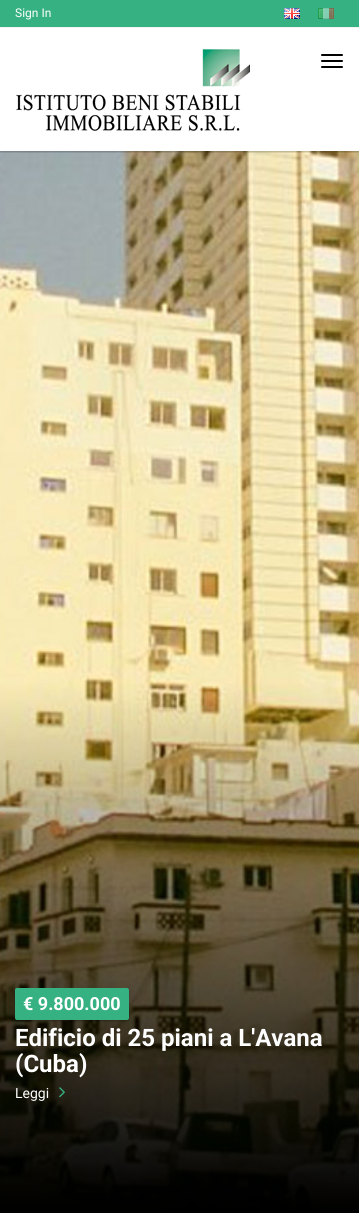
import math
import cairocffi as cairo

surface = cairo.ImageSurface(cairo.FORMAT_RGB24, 359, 1213)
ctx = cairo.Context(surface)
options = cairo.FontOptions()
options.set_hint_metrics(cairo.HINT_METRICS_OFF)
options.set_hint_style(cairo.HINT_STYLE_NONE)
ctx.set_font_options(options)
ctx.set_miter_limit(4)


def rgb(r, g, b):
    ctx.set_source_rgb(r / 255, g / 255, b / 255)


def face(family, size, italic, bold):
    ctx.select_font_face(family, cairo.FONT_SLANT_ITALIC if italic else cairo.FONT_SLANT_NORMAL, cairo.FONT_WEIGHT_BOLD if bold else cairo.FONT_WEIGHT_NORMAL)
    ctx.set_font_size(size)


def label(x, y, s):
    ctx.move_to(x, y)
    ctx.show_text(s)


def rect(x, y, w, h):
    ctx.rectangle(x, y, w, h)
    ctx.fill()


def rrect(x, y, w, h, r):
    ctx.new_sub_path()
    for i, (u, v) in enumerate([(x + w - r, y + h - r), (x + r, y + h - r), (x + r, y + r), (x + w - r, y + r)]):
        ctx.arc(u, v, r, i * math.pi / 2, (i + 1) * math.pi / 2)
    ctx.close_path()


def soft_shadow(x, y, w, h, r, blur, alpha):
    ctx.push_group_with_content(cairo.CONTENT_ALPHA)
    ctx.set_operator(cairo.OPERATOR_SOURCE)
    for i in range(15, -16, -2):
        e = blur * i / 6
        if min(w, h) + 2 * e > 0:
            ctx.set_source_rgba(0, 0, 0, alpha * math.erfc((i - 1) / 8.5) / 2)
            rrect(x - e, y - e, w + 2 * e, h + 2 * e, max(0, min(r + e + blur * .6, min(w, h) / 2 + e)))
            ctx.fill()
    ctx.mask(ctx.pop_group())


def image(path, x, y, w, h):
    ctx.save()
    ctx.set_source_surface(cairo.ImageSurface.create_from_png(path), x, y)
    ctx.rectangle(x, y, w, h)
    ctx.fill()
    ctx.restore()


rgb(255, 255, 255)
ctx.paint()
image('image3.png', 0, 151, 359, 1062)
ctx.save()
ctx.rectangle(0, 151, 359, 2)
ctx.clip()
rgb(0, 0, 0)
soft_shadow(0, 1, 359, 151, 0, 1, 0.3)
ctx.restore()
rgb(53, 177, 130)
rect(0, 0, 359, 27)
rgb(243, 243, 243)
rect(0, 27, 359, 1)
face('Roboto', 12, 0, 0)
rgb(255, 255, 255)
label(15, 17, 'Sign In')
image('image0.png', 284, 8, 16, 11)
image('image1.png', 318, 8, 16, 11)
image('image2.png', 16, 49, 234, 82)
rgb(0, 0, 0)
rrect(321, 54, 22, 2, 1)
ctx.fill()
rrect(321, 60, 22, 2, 1)
ctx.fill()
rrect(321, 66, 22, 2, 1)
ctx.fill()
rgb(0, 0, 0)
soft_shadow(15, 989, 114, 32, 2, 1, 0.3)
rgb(53, 177, 130)
rrect(15, 988, 114, 32, 2)
ctx.fill()
face('Roboto', 18, 0, 1)
rgb(255, 255, 255)
label(23, 1010, '€ 9.800.000')
face('Roboto', 24, 0, 1)
label(15, 1046, 'Edificio di 25 piani a L\'Avana')
label(15, 1072, '(Cuba)')
face('Roboto', 14, 0, 0)
label(15, 1098, 'Leggi')
image('image4.png', 59, 1087, 6, 11)
surface.write_to_png('render.png')
